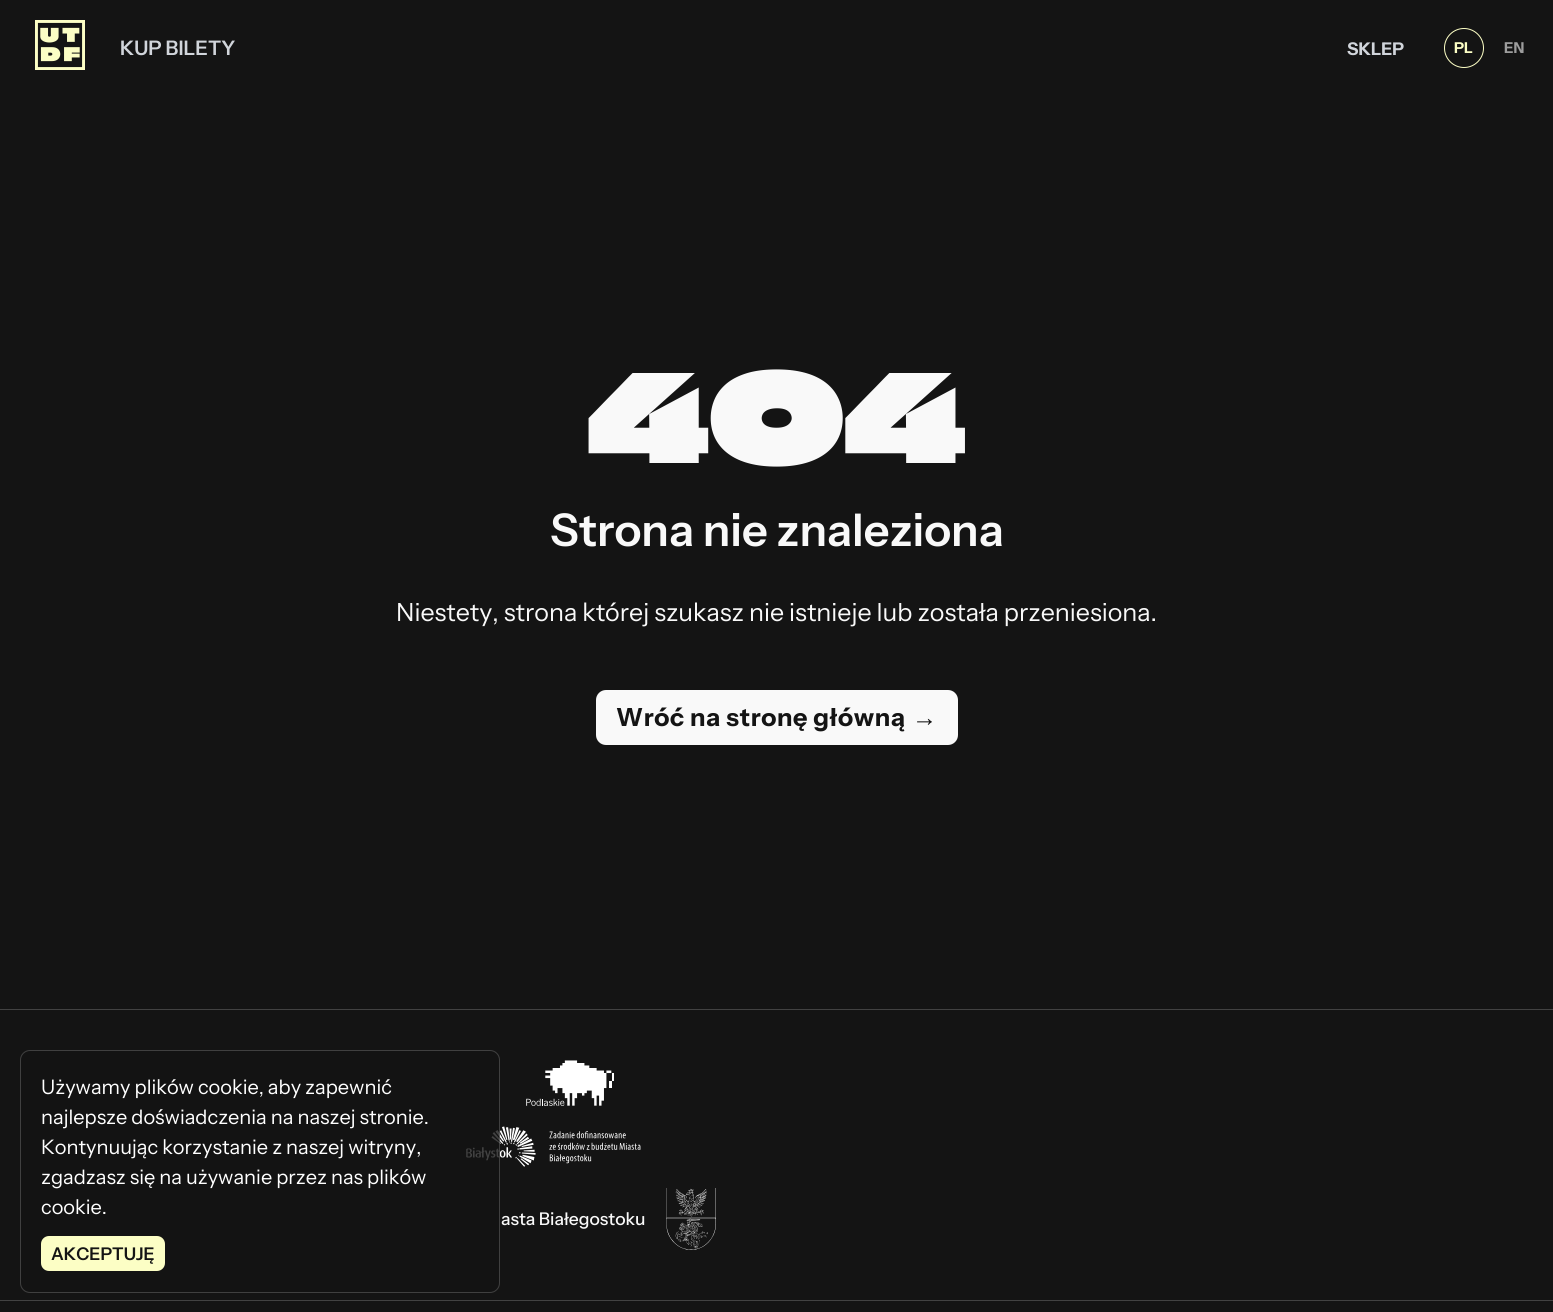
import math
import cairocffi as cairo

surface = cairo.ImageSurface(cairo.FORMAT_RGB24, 1553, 1312)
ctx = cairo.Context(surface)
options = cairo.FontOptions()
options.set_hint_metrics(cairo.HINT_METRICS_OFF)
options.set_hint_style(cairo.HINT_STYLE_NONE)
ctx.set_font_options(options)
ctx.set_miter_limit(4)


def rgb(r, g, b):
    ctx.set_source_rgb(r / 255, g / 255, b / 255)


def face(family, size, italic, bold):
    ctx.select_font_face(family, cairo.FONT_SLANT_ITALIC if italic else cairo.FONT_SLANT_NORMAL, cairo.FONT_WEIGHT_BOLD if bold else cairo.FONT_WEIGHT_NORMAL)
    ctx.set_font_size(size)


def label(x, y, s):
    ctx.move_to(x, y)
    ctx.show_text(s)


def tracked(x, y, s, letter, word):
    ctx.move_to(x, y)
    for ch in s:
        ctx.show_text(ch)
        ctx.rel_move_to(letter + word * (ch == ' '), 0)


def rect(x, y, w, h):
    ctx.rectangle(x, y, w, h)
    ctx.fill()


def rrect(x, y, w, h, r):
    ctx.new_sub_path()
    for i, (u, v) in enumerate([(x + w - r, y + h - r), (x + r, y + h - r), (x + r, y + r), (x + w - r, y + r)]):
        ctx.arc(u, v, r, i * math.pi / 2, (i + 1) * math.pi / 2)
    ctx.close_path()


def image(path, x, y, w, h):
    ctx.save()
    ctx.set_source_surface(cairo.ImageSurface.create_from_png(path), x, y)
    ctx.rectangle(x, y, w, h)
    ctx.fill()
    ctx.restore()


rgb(20, 20, 20)
ctx.paint()
image('image0.png', 35, 20, 50, 50)
face('Instrument Sans SemiBold', 20, 0, 0)
rgb(209, 213, 219)
label(120, 55, 'KUP BILETY')
face('Instrument Sans', 17.5, 0, 1)
label(1347, 55, 'SKLEP')
ctx.new_path()
ctx.arc(1464, 48, 19.5, 0, 2 * math.pi)
rgb(252, 254, 197)
ctx.set_line_width(1)
ctx.stroke()
face('Instrument Sans', 15, 0, 1)
label(1454, 53, 'PL')
rgb(157, 157, 157)
label(1504, 53, 'EN')
image('image2.png', 466, 1126, 175, 41)
ctx.set_source_rgba(0.078, 0.078, 0.078, 0.8)
rrect(20, 1050, 480, 243, 10)
ctx.fill()
rrect(20.5, 1050.5, 479, 242, 9.5)
ctx.set_source_rgba(0.976, 0.976, 0.976, 0.2)
ctx.stroke()
face('Instrument Sans', 20, 0, 0)
rgb(255, 255, 255)
label(41, 1094, 'Używamy plików cookie, aby zapewnić')
label(41, 1124, 'najlepsze doświadczenia na naszej stronie.')
label(41, 1154, 'Kontynuując korzystanie z naszej witryny,')
label(41, 1184, 'zgadzasz się na używanie przez nas plików')
label(41, 1214, 'cookie.')
rgb(252, 254, 197)
rrect(41, 1236, 124, 35, 8)
ctx.fill()
face('Instrument Sans SemiBold', 17.5, 0, 0)
rgb(20, 20, 20)
label(51, 1260, 'AKCEPTUJĘ')
face('Climate Crisis', 120, 0, 0)
rgb(249, 249, 249)
label(587, 463, '404')
face('Instrument Sans SemiBold', 45, 0, 0)
label(550, 546, 'Strona nie znaleziona')
face('Instrument Sans', 25, 0, 0)
label(396, 621, 'Niestety, strona której szukasz nie istnieje lub została przeniesiona.')
rrect(596, 690, 362, 55, 10)
ctx.fill()
face('Instrument Sans', 25, 0, 1)
rgb(20, 20, 20)
tracked(616, 726, 'Wróć na stronę główną', 0.6, 0)
face('Liberation Sans', 25, 0, 1)
tracked(912, 726, '→', 0.6, 0)
rgb(66, 66, 66)
rect(0, 1009, 1553, 1)
rect(0, 1300, 1553, 1)
image('image1.png', 526, 1060, 88, 46)
face('Instrument Sans Medium', 17.5, 0, 0)
rgb(249, 249, 249)
label(501, 1225, 'asta Białegostoku')
image('image3.png', 666, 1188, 50, 62)
surface.write_to_png('render.png')
